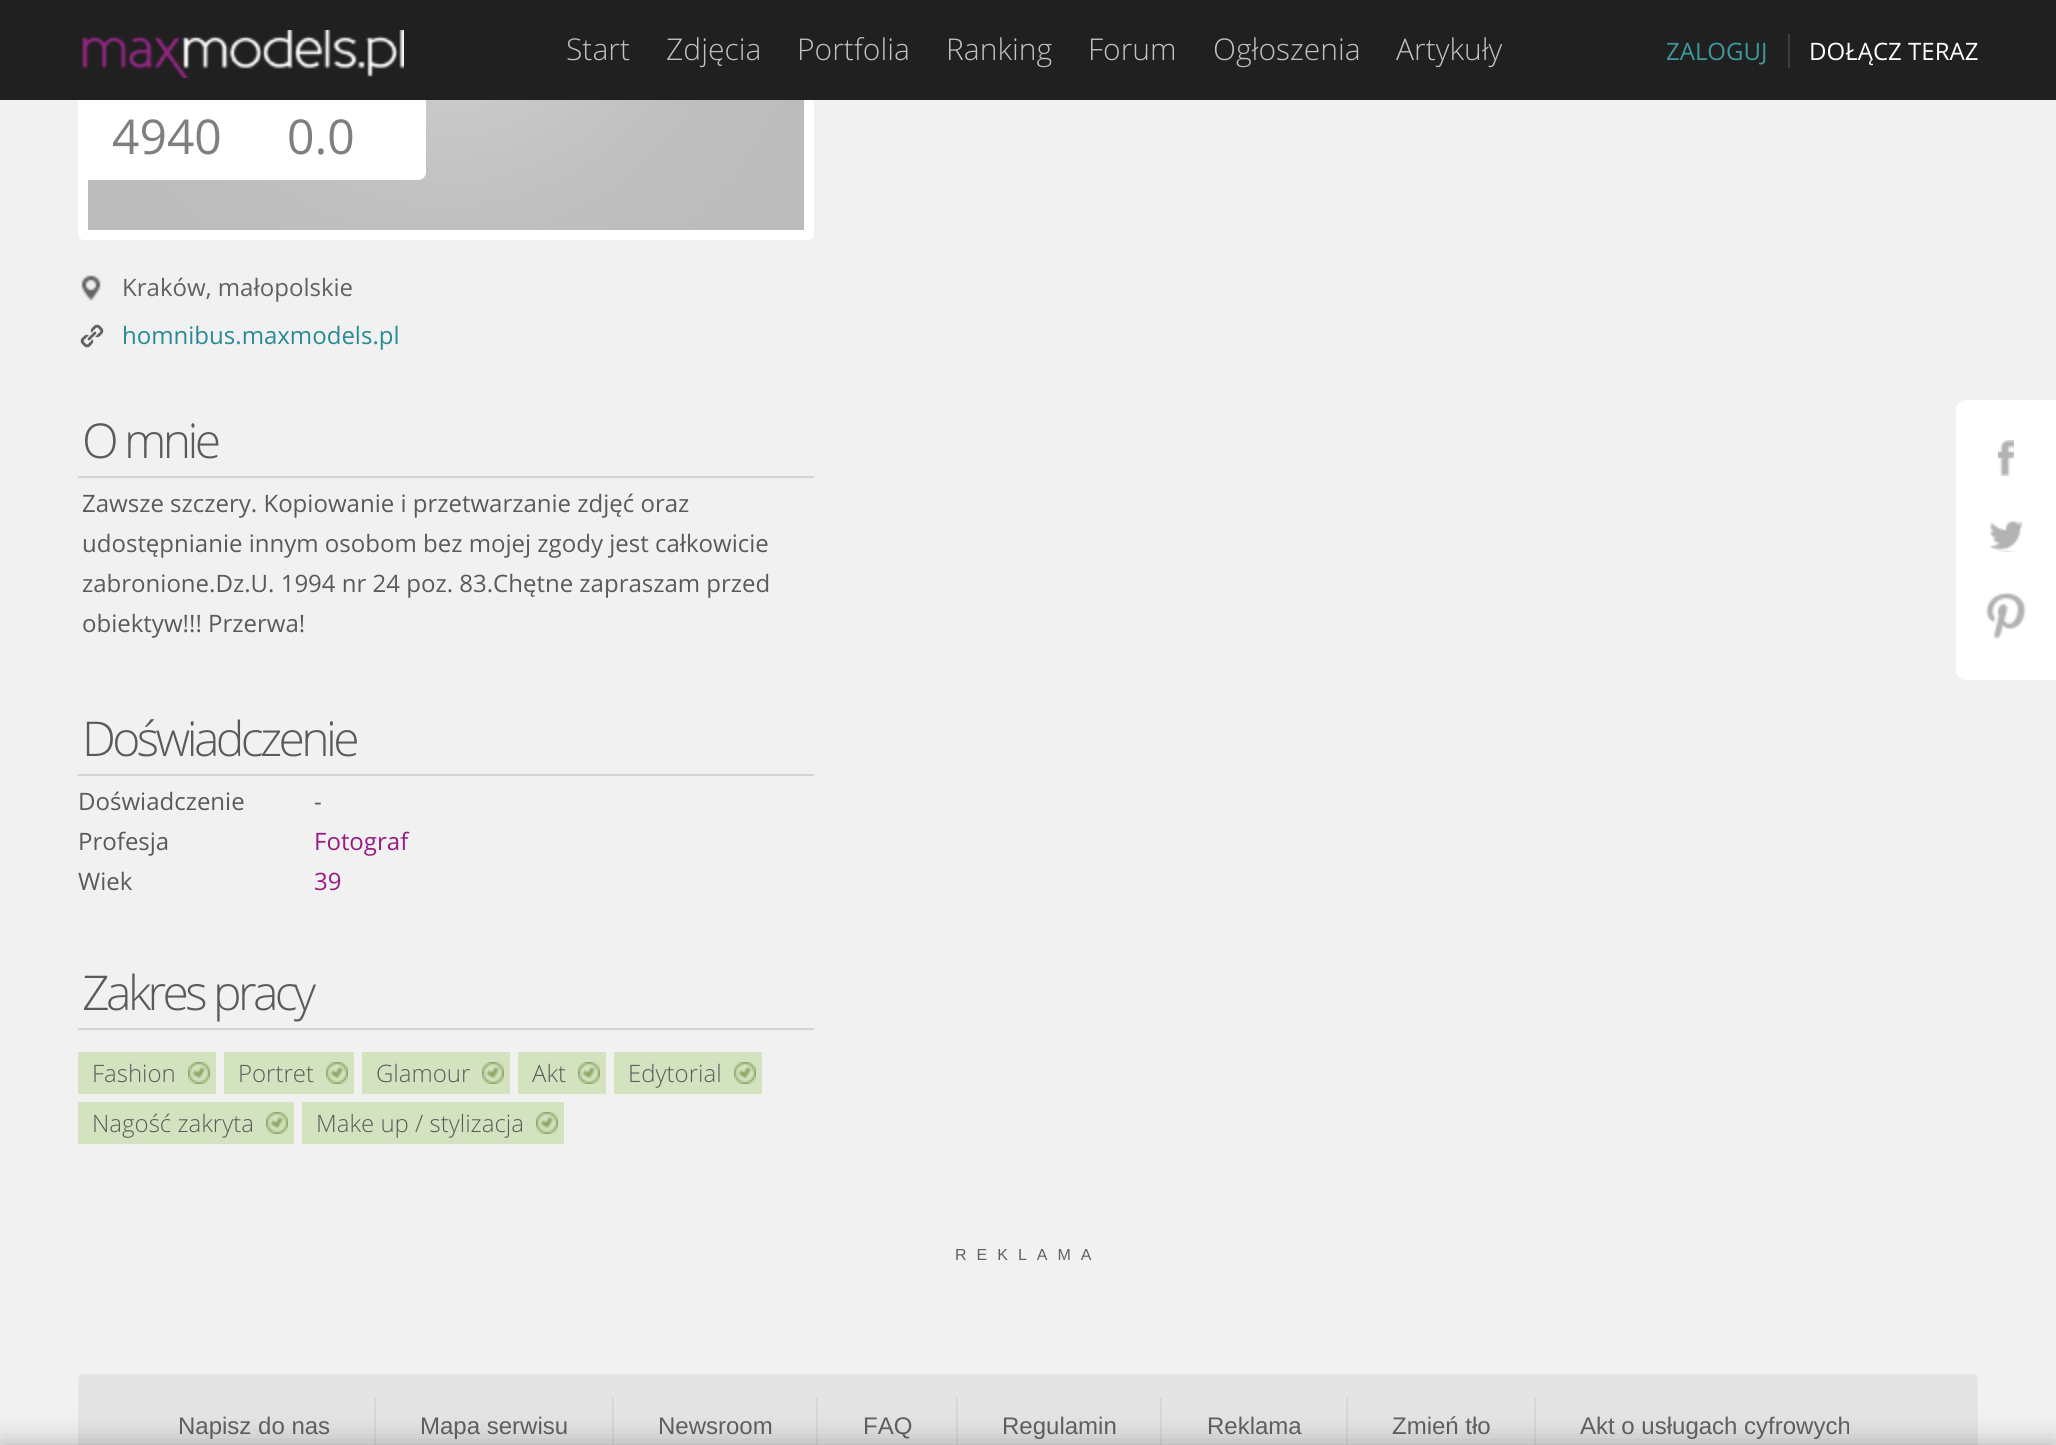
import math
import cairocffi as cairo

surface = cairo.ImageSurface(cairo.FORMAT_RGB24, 2056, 1445)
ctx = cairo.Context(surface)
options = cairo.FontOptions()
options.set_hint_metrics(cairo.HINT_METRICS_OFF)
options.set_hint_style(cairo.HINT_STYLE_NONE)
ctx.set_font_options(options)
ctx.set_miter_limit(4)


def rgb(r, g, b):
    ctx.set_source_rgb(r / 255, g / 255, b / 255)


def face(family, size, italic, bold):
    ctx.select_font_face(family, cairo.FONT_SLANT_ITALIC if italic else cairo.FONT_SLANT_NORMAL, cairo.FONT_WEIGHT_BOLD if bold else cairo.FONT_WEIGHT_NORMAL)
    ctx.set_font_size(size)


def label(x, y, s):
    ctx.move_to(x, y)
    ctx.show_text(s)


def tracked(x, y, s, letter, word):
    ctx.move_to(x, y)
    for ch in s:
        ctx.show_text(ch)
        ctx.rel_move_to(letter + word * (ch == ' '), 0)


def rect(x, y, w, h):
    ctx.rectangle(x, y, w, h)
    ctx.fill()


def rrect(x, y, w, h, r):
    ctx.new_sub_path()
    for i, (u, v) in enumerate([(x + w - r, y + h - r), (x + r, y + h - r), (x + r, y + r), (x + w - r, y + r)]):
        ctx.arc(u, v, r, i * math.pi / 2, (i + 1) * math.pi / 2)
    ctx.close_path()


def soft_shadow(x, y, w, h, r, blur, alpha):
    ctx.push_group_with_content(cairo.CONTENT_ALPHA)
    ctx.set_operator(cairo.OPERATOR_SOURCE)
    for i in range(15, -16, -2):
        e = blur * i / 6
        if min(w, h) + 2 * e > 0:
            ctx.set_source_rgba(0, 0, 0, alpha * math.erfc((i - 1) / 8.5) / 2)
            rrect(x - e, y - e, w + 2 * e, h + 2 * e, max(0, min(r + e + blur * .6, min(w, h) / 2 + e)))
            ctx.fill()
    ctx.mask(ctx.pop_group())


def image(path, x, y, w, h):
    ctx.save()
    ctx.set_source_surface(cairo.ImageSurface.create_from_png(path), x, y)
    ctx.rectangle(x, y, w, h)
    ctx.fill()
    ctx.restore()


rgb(241, 241, 241)
ctx.paint()
rgb(255, 255, 255)
rrect(78, -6, 736, 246, 6)
ctx.fill()
image('image1.png', 88, 100, 716, 130)
ctx.new_path()
ctx.move_to(78, 68)
ctx.line_to(418, 68)
ctx.curve_to(422.5, 68, 426, 71.5, 426, 76)
ctx.line_to(426, 172)
ctx.curve_to(426, 176.5, 422.5, 180, 418, 180)
ctx.line_to(78, 180)
ctx.close_path()
ctx.fill()
rgb(33, 32, 32)
rect(0, 0, 2056, 100)
image('image0.png', 82, 30, 322, 48)
face('Open Sans Light', 30, 0, 0)
rgb(193, 193, 193)
label(566, 60, 'Start')
label(666, 60, 'Zdjęcia')
label(797, 60, 'Portfolia')
label(946, 60, 'Ranking')
label(1088, 60, 'Forum')
label(1213, 60, 'Ogłoszenia')
label(1396, 60, 'Artykuły')
face('Open Sans', 24, 0, 0)
rgb(61, 152, 158)
label(1666, 60, 'ZALOGUJ')
rgb(63, 63, 63)
rect(1788, 34, 2, 34)
rgb(255, 255, 255)
label(1809, 60, 'DOŁĄCZ TERAZ')
face('Open Sans', 48, 0, 0)
rgb(127, 127, 127)
label(112, 154, '4940')
label(287, 154, '0.0')
image('image2.png', 81, 275, 20, 26)
face('Open Sans', 24, 0, 0)
rgb(97, 97, 97)
label(122, 296, 'Kraków, małopolskie')
image('image3.png', 80, 324, 24, 24)
rgb(40, 138, 149)
label(122, 344, 'homnibus.maxmodels.pl')
rgb(212, 212, 212)
rect(78, 476, 736, 2)
face('Open Sans Light', 48, 0, 0)
rgb(90, 90, 90)
tracked(82, 458, 'O mnie', -3.6, 0)
face('Open Sans', 24, 0, 0)
label(82, 512, 'Zawsze szczery. Kopiowanie i przetwarzanie zdjęć oraz')
label(82, 552, 'udostępnianie innym osobom bez mojej zgody jest całkowicie')
label(82, 592, 'zabronione.Dz.U. 1994 nr 24 poz. 83.Chętne zapraszam przed')
label(82, 632, 'obiektyw!!! Przerwa!')
rgb(212, 212, 212)
rect(78, 774, 736, 2)
face('Open Sans Light', 48, 0, 0)
rgb(90, 90, 90)
tracked(82, 756, 'Doświadczenie', -3.6, 0)
face('Open Sans', 24, 0, 0)
label(78, 810, 'Doświadczenie')
label(314, 810, '-')
label(78, 850, 'Profesja')
rgb(151, 27, 132)
label(314, 850, 'Fotograf')
rgb(90, 90, 90)
label(78, 890, 'Wiek')
rgb(151, 27, 132)
label(314, 890, '39')
rgb(212, 212, 212)
rect(78, 1028, 736, 2)
face('Open Sans Light', 48, 0, 0)
rgb(90, 90, 90)
tracked(82, 1010, 'Zakres pracy', -3.6, 0)
rgb(212, 227, 191)
rect(78, 1052, 138, 42)
face('Open Sans Light', 24, 0, 0)
rgb(90, 90, 90)
label(92, 1082, 'Fashion')
image('image4.png', 188, 1062, 22, 22)
rgb(212, 227, 191)
rect(224, 1052, 130, 42)
rgb(90, 90, 90)
label(238, 1082, 'Portret')
image('image4.png', 326, 1062, 22, 22)
rgb(212, 227, 191)
rect(362, 1052, 148, 42)
rgb(90, 90, 90)
label(376, 1082, 'Glamour')
image('image4.png', 482, 1062, 22, 22)
rgb(212, 227, 191)
rect(518, 1052, 88, 42)
rgb(90, 90, 90)
label(532, 1082, 'Akt')
image('image4.png', 578, 1062, 22, 22)
rgb(212, 227, 191)
rect(614, 1052, 148, 42)
rgb(90, 90, 90)
label(628, 1082, 'Edytorial')
image('image4.png', 734, 1062, 22, 22)
rgb(212, 227, 191)
rect(78, 1102, 216, 42)
rgb(90, 90, 90)
label(92, 1132, 'Nagość zakryta')
image('image4.png', 266, 1112, 22, 22)
rgb(212, 227, 191)
rect(302, 1102, 262, 42)
rgb(90, 90, 90)
label(316, 1132, 'Make up / stylizacja')
image('image4.png', 536, 1112, 22, 22)
face('Liberation Sans', 16, 0, 0)
rgb(97, 97, 97)
tracked(955, 1260, 'REKLAMA', 10, 0)
rgb(228, 228, 228)
rrect(78, 1374, 1900, 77, 6)
ctx.fill()
rgb(215, 215, 215)
rect(374, 1398, 2, 47)
face('Liberation Sans', 24, 0, 0)
rgb(97, 97, 97)
label(178, 1434, 'Napisz do nas')
rgb(215, 215, 215)
rect(612, 1398, 2, 47)
rgb(97, 97, 97)
label(420, 1434, 'Mapa serwisu')
rgb(215, 215, 215)
rect(816, 1398, 2, 47)
rgb(97, 97, 97)
label(658, 1434, 'Newsroom')
rgb(215, 215, 215)
rect(956, 1398, 2, 47)
rgb(97, 97, 97)
label(863, 1434, 'FAQ')
rgb(215, 215, 215)
rect(1160, 1398, 2, 47)
rgb(97, 97, 97)
label(1002, 1434, 'Regulamin')
rgb(215, 215, 215)
rect(1346, 1398, 2, 47)
rgb(97, 97, 97)
label(1207, 1434, 'Reklama')
rgb(215, 215, 215)
rect(1534, 1398, 2, 47)
rgb(97, 97, 97)
label(1392, 1434, 'Zmień tło')
label(1580, 1434, 'Akt o usługach cyfrowych')
rgb(255, 255, 255)
ctx.new_path()
ctx.move_to(1966, 400)
ctx.line_to(2056, 400)
ctx.line_to(2056, 680)
ctx.line_to(1966, 680)
ctx.curve_to(1960.5, 680, 1956, 675.5, 1956, 670)
ctx.line_to(1956, 410)
ctx.curve_to(1956, 404.5, 1960.5, 400, 1966, 400)
ctx.close_path()
ctx.fill()
image('image5.png', 1998, 440, 16, 36)
image('image6.png', 1990, 520, 32, 32)
image('image7.png', 1986, 592, 40, 47)
rgb(0, 0, 0)
soft_shadow(0, 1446, 2056, 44, 0, 15, 0.3)
surface.write_to_png('render.png')
